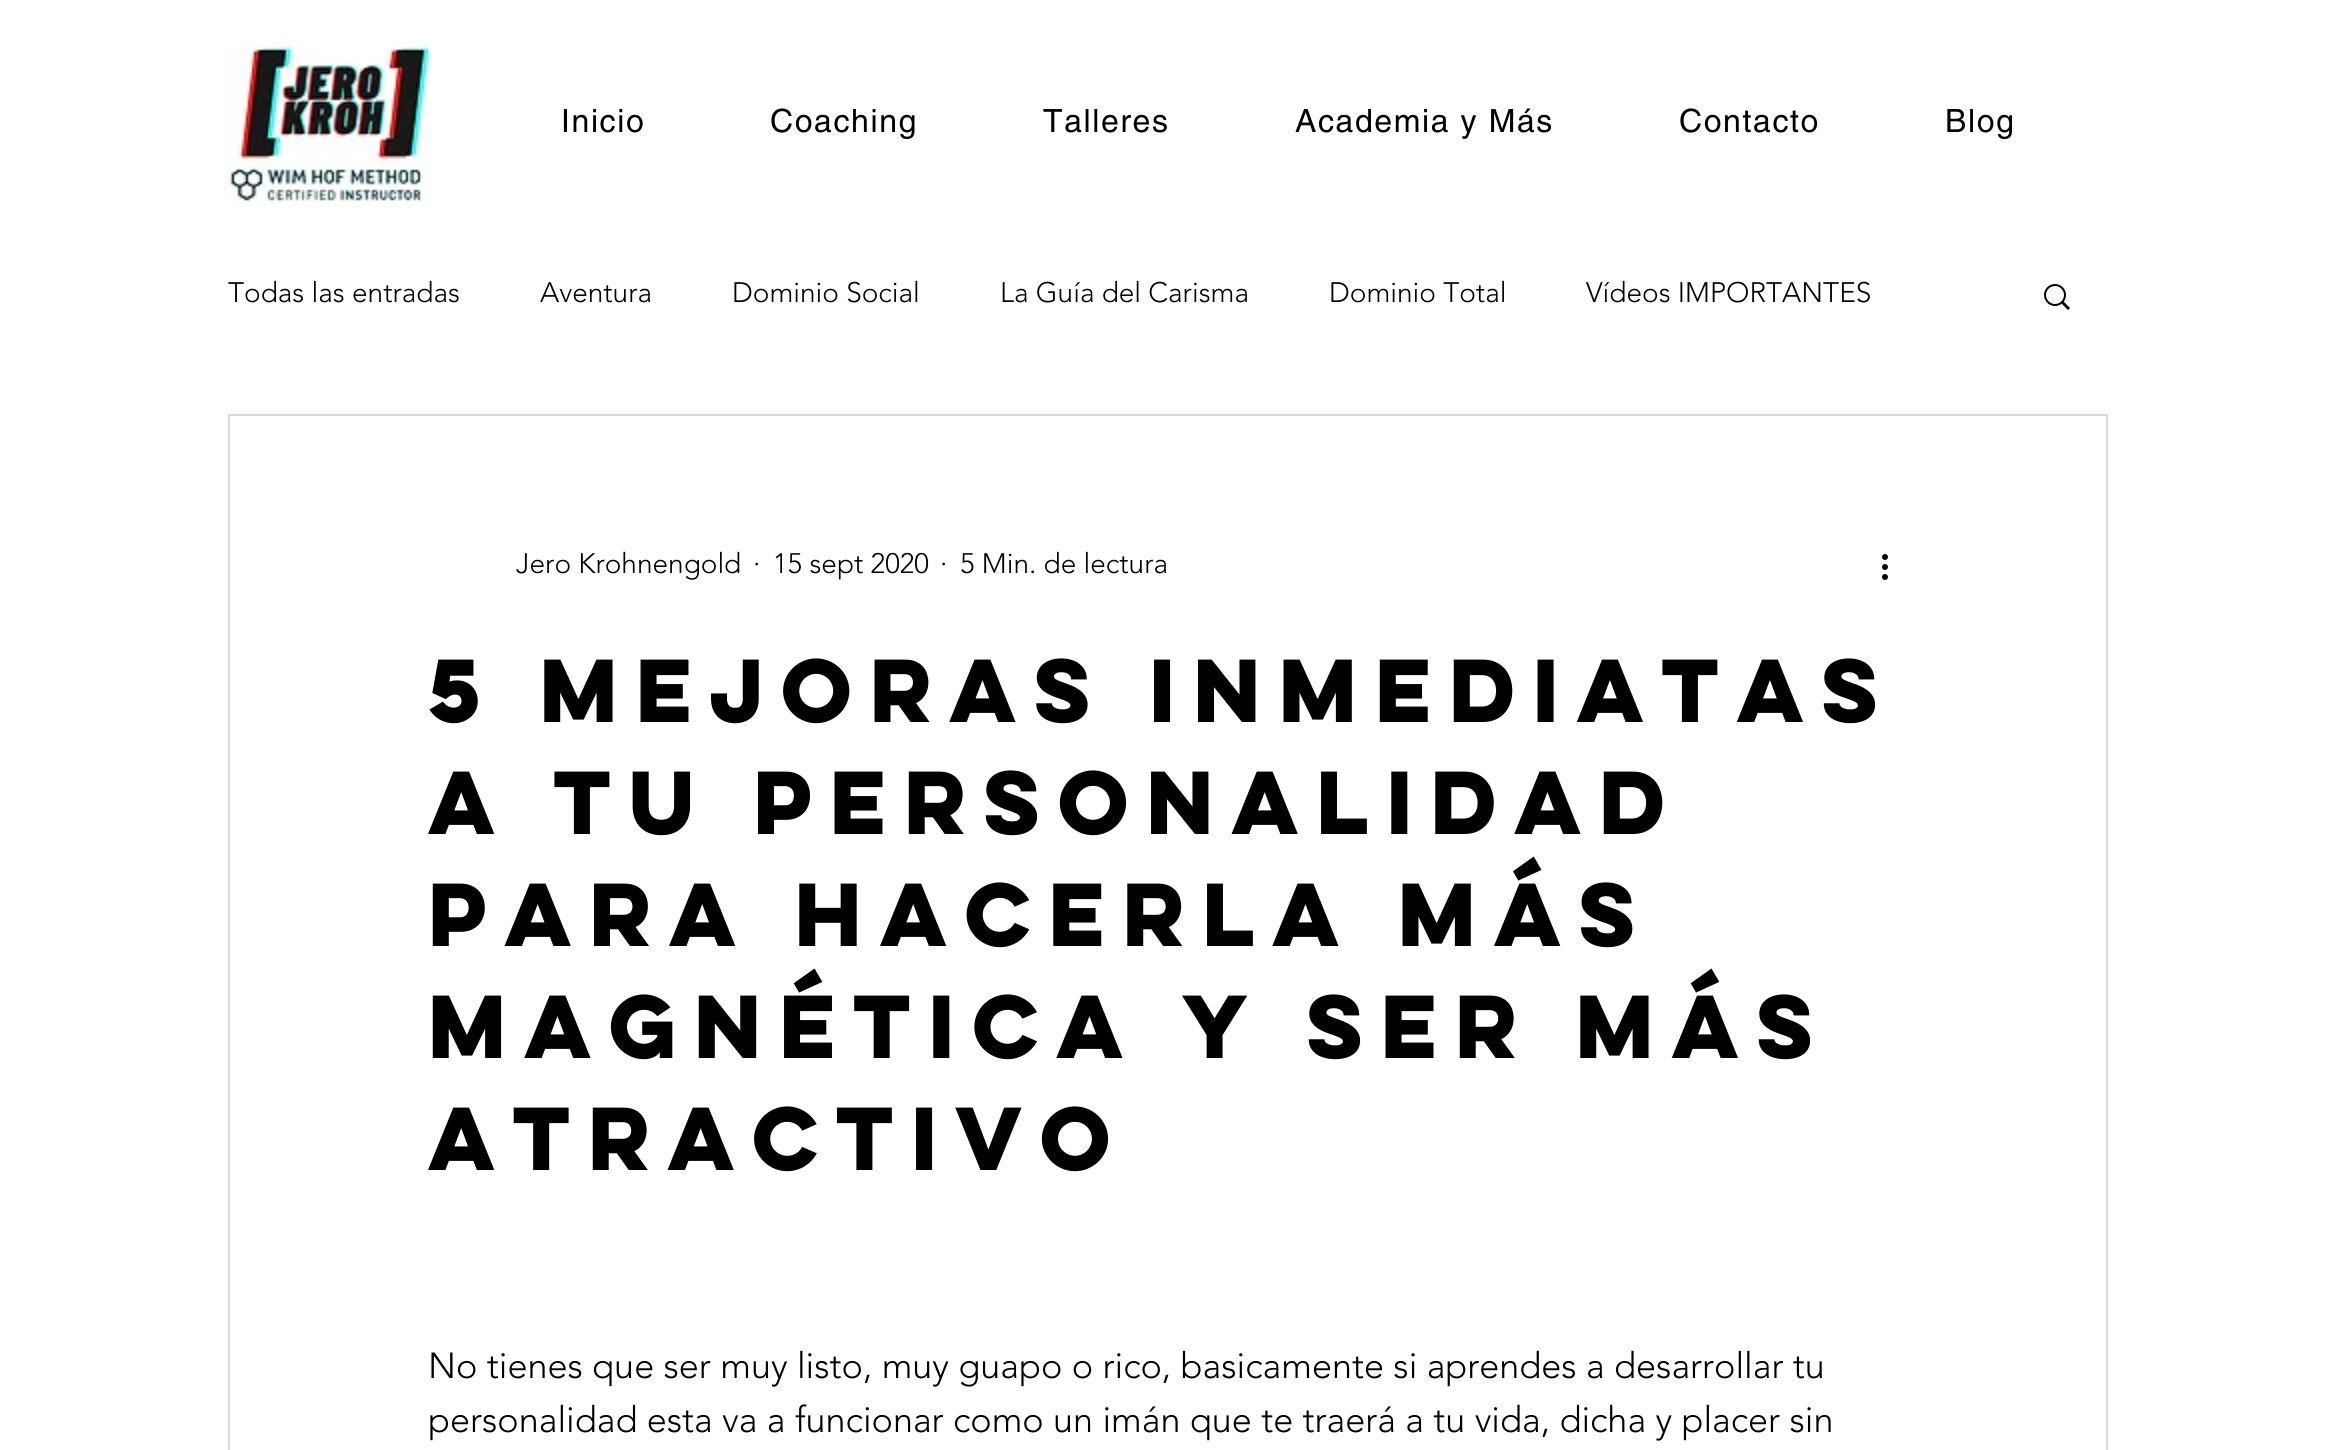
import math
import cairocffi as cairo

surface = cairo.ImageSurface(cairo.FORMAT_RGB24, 2335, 1450)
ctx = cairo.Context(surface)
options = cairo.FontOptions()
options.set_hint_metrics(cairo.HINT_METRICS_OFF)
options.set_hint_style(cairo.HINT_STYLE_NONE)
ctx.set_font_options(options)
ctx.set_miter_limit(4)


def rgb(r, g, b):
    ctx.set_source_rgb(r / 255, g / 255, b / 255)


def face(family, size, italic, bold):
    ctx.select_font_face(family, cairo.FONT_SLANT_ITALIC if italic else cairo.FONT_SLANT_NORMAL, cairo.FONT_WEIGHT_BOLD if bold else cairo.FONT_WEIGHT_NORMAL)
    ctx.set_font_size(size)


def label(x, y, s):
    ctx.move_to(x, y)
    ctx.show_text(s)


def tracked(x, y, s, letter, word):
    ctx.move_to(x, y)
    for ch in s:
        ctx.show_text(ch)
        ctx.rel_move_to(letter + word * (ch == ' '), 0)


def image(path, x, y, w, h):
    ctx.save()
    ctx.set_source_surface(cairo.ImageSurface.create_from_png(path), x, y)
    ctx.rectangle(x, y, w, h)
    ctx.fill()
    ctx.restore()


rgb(255, 255, 255)
ctx.paint()
image('image0.png', 224, 45, 209, 162)
face('helvetica', 32, 0, 0)
rgb(0, 0, 0)
tracked(561, 132, 'Inicio', 1.6, 0)
tracked(770, 132, 'Coaching', 1.6, 0)
tracked(1043, 132, 'Talleres', 1.6, 0)
tracked(1295, 132, 'Academia y Más', 1.6, 0)
tracked(1679, 132, 'Contacto', 1.6, 0)
tracked(1945, 132, 'Blog', 1.6, 0)
face('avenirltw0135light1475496 Light', 28, 0, 0)
label(228, 302, 'Todas las entradas')
label(540, 302, 'Aventura')
label(732, 302, 'Dominio Social')
label(1000, 302, 'La Guía del Carisma')
label(1329, 302, 'Dominio Total')
label(1586, 302, 'Vídeos IMPORTANTES')
image('image1.png', 2044, 284, 26, 26)
ctx.rectangle(229, 415, 1878, 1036)
rgb(217, 217, 217)
ctx.stroke()
rgb(0, 0, 0)
label(516, 573, 'Jero Krohnengold')
label(753, 573, '·')
label(773, 573, '15 sept 2020')
label(940, 573, '·')
label(960, 573, '5 Min. de lectura')
image('image2.png', 1882, 554, 6, 26)
face('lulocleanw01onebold', 80, 0, 1)
label(428, 722, '5 Mejoras Inmediatas')
label(428, 834, 'a tu Personalidad')
label(428, 946, 'para Hacerla más')
label(428, 1058, 'Magnética y ser más')
label(428, 1170, 'Atractivo')
face('avenirltw0135light1475496 Light', 36, 0, 0)
label(428, 1378, 'No tienes que ser muy listo, muy guapo o rico, basicamente si aprendes a desarrollar tu')
label(428, 1432, 'personalidad esta va a funcionar como un imán que te traerá a tu vida, dicha y placer sin')
surface.write_to_png('render.png')
